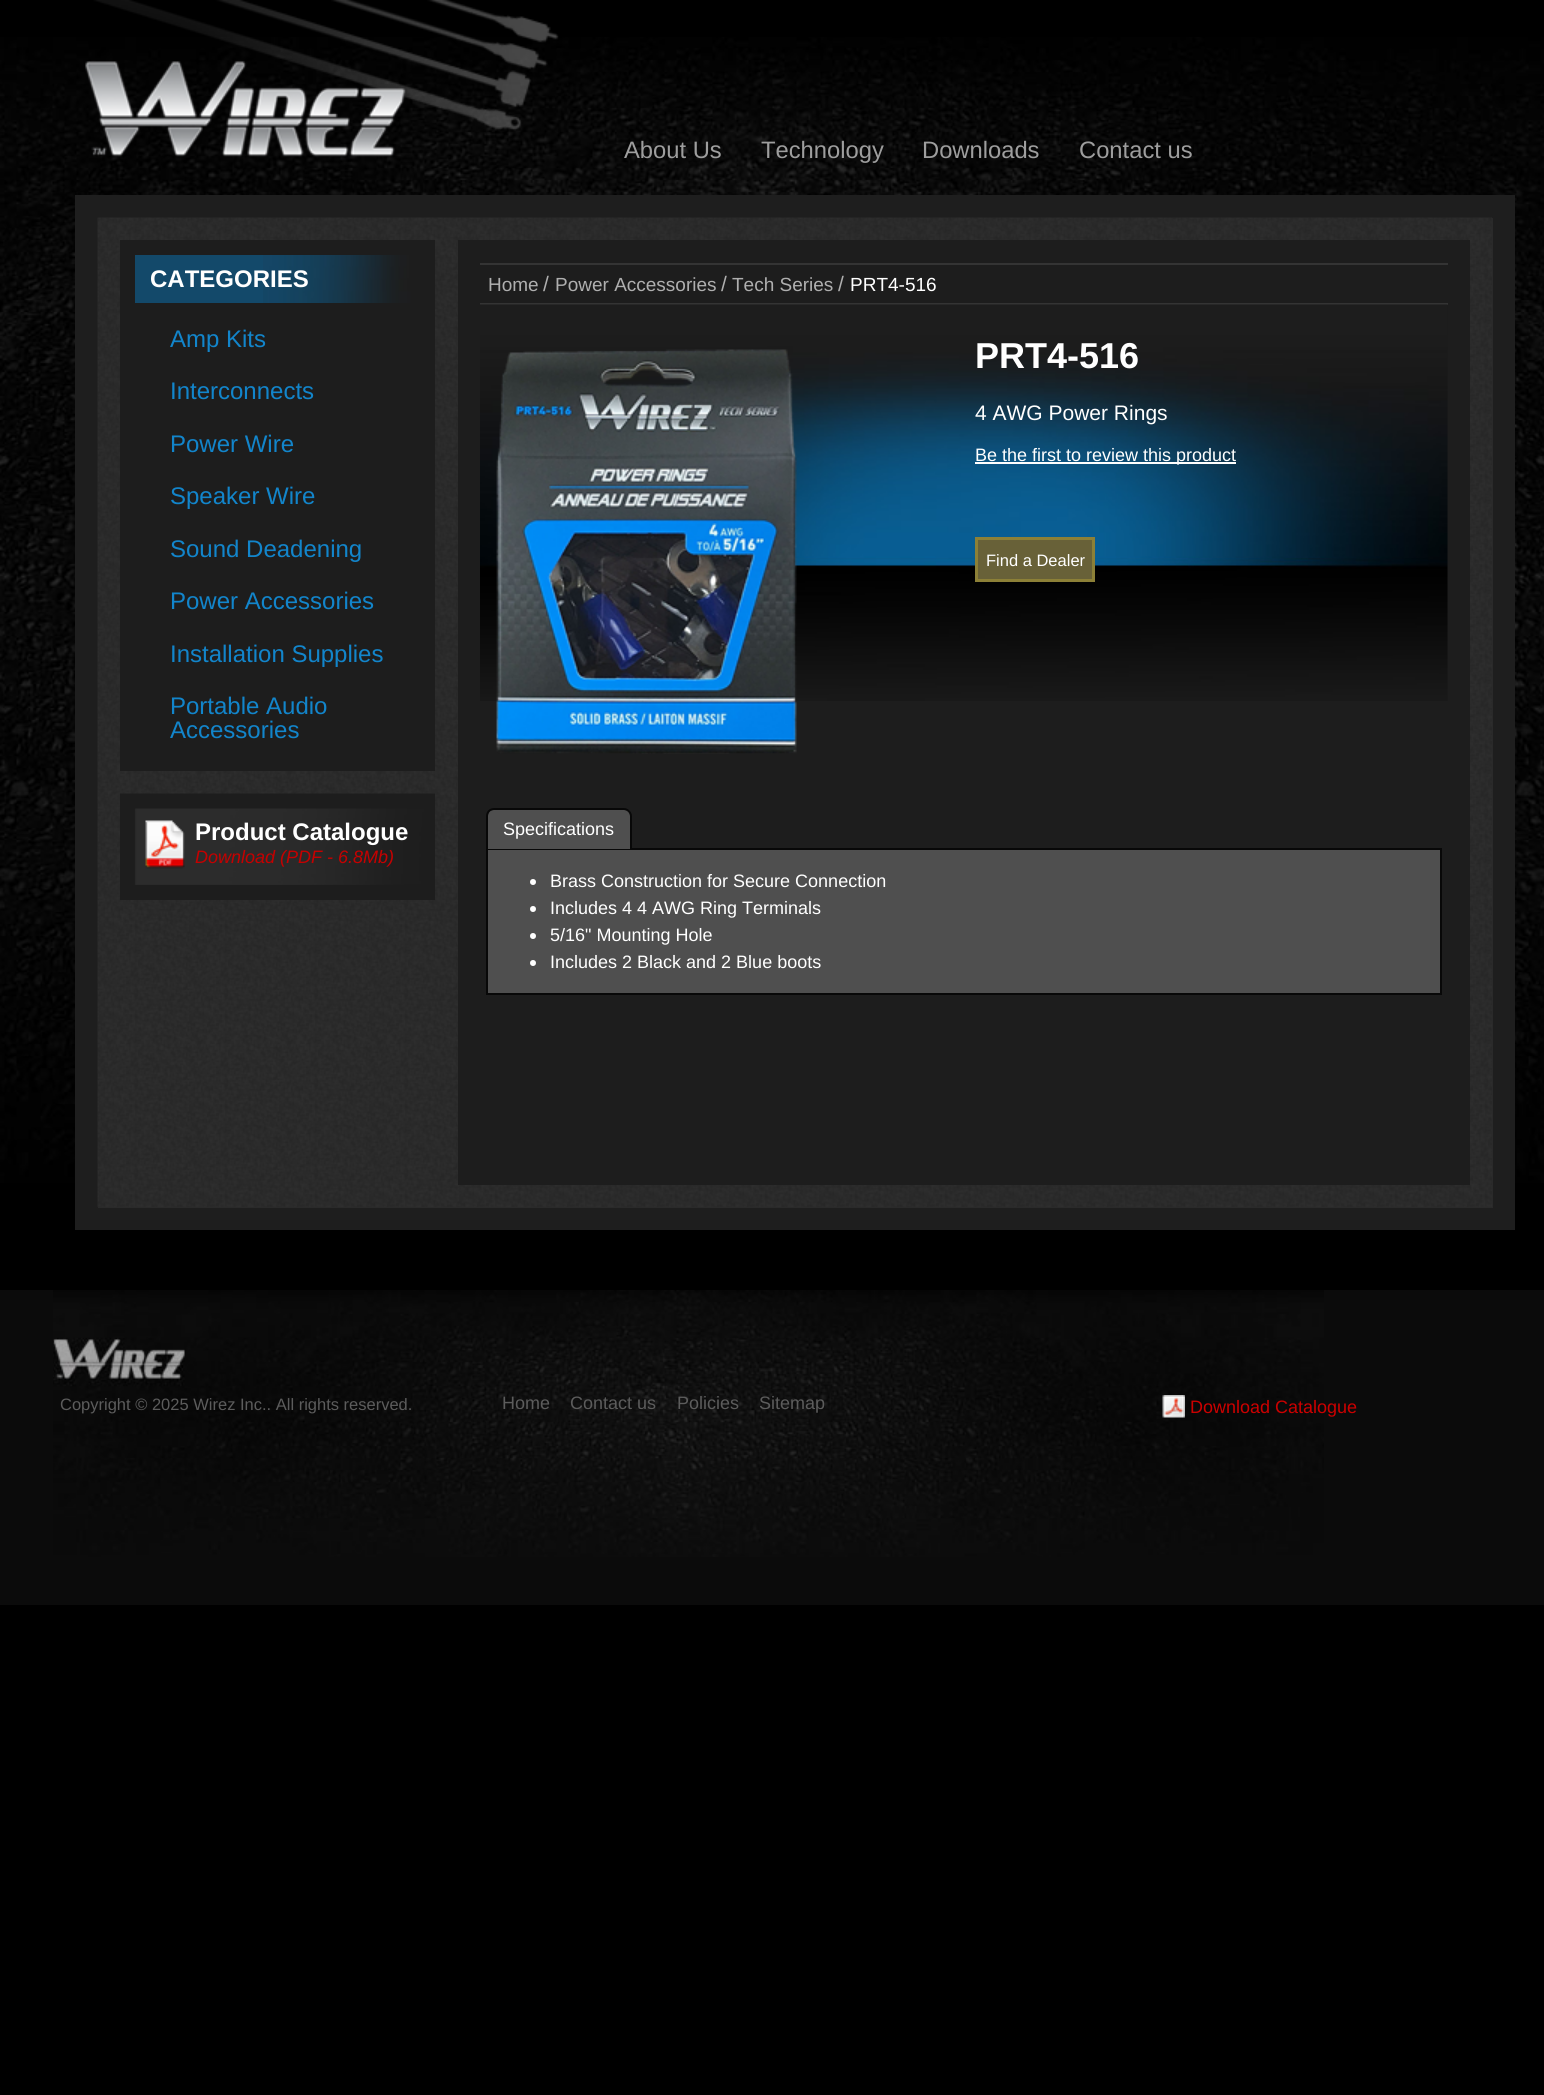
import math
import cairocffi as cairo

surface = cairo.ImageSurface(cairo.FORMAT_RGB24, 1544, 2095)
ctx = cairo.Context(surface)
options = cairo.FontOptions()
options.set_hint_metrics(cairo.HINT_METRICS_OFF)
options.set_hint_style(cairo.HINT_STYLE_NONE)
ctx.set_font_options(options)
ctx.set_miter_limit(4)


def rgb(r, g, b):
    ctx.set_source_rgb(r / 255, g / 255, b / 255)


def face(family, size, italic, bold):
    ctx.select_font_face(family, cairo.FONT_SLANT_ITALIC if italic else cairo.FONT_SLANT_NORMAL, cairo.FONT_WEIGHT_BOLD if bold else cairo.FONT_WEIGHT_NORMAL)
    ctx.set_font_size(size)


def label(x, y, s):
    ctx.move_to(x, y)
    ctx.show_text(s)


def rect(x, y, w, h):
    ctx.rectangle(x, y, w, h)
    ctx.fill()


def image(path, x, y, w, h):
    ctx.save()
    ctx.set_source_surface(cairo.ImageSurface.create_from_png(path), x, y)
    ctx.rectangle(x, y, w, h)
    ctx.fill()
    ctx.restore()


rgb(0, 0, 0)
ctx.paint()
image('image0.png', 0, 37, 1544, 1146)
image('image1.png', 85, 0, 474, 157)
face('Liberation Sans', 23.75, 0, 0)
rgb(158, 158, 158)
label(624, 158, 'About Us')
label(761, 158, 'Technology')
label(922, 158, 'Downloads')
label(1079, 158, 'Contact us')
rgb(30, 30, 30)
rect(75, 195, 1440, 1035)
rgb(42, 42, 42)
rect(98, 218, 1395, 990)
image('image2.png', 97, 217, 1395, 990)
rgb(29, 29, 29)
rect(120, 240, 315, 531)
rgb(19, 73, 106)
rect(135, 255, 128, 48)
image('image3.png', 263, 255, 157, 48)
face('Liberation Sans', 24, 0, 1)
rgb(255, 255, 255)
label(150, 287, 'CATEGORIES')
face('Liberation Sans', 24, 0, 0)
rgb(18, 133, 203)
label(170, 347, 'Amp Kits')
label(170, 399, 'Interconnects')
label(170, 452, 'Power Wire')
label(170, 504, 'Speaker Wire')
label(170, 557, 'Sound Deadening')
label(170, 609, 'Power Accessories')
label(170, 662, 'Installation Supplies')
label(170, 714, 'Portable Audio')
label(170, 738, 'Accessories')
rgb(29, 29, 29)
rect(120, 885, 315, 15)
image('image4.png', 120, 793, 315, 92)
face('Liberation Sans', 24, 0, 1)
rgb(255, 255, 255)
label(195, 840, 'Product Catalogue')
face('Liberation Sans', 18, 1, 0)
rgb(198, 0, 0)
label(195, 863, 'Download (PDF - 6.8Mb)')
rgb(29, 29, 29)
rect(458, 240, 1012, 945)
rgb(52, 52, 52)
rect(480, 263, 968, 2)
rect(480, 303, 968, 2)
face('Liberation Sans', 19, 0, 0)
rgb(175, 175, 175)
label(488, 291, 'Home')
face('Liberation Sans', 21, 0, 0)
label(543, 291, '/')
face('Liberation Sans', 19, 0, 0)
label(555, 291, 'Power Accessories')
face('Liberation Sans', 21, 0, 0)
label(721, 291, '/')
face('Liberation Sans', 19, 0, 0)
label(732, 291, 'Tech Series')
face('Liberation Sans', 21, 0, 0)
label(838, 291, '/')
face('Liberation Sans', 19, 0, 0)
rgb(255, 255, 255)
label(850, 291, 'PRT4-516')
image('image5.png', 480, 304, 968, 397)
image('image6.png', 496, 349, 301, 405)
face('Liberation Sans', 36, 0, 1)
label(975, 368, 'PRT4-516')
face('Liberation Sans', 21, 0, 0)
label(975, 420, '4 AWG Power Rings')
rect(975, 462, 261, 2)
face('Liberation Sans', 18, 0, 0)
label(975, 461, 'Be the first to review this product')
rgb(104, 97, 56)
ctx.rectangle(976.5, 538.5, 117, 42)
ctx.fill_preserve()
rgb(140, 128, 55)
ctx.set_line_width(3)
ctx.stroke()
face('Liberation Sans', 16.5, 0, 0)
rgb(255, 255, 255)
label(986, 566, 'Find a Dealer')
rgb(79, 79, 79)
ctx.rectangle(487, 849, 954, 145)
ctx.fill_preserve()
rgb(8, 8, 8)
ctx.set_line_width(2)
ctx.stroke()
rgb(79, 79, 79)
ctx.new_path()
ctx.move_to(494, 810)
ctx.line_to(624, 810)
ctx.curve_to(627.5, 810, 630, 812.5, 630, 816)
ctx.line_to(630, 849)
ctx.line_to(488, 849)
ctx.line_to(488, 816)
ctx.curve_to(488, 812.5, 490.5, 810, 494, 810)
ctx.close_path()
ctx.fill()
rgb(8, 8, 8)
ctx.set_fill_rule(cairo.FILL_RULE_EVEN_ODD)
ctx.new_path()
ctx.move_to(494, 808)
ctx.line_to(624, 808)
ctx.curve_to(628, 808, 632, 812, 632, 816)
ctx.line_to(632, 849)
ctx.line_to(486, 849)
ctx.line_to(486, 816)
ctx.curve_to(486, 812, 489, 808, 494, 808)
ctx.close_path()
ctx.move_to(494, 810)
ctx.line_to(624, 810)
ctx.curve_to(627, 810, 630, 813, 630, 816)
ctx.line_to(630, 849)
ctx.line_to(488, 849)
ctx.line_to(488, 816)
ctx.curve_to(488, 813, 490, 810, 494, 810)
ctx.close_path()
ctx.fill()
face('Liberation Sans', 18, 0, 0)
rgb(255, 255, 255)
label(503, 835, 'Specifications')
ctx.new_path()
ctx.arc(533, 882, 3, 0, 2 * math.pi)
ctx.fill()
label(550, 887, 'Brass Construction for Secure Connection')
ctx.new_path()
ctx.arc(533, 909, 3, 0, 2 * math.pi)
ctx.fill()
label(550, 914, 'Includes 4 4 AWG Ring Terminals')
ctx.new_path()
ctx.arc(533, 936, 3, 0, 2 * math.pi)
ctx.fill()
label(550, 941, '5/16" Mounting Hole')
ctx.new_path()
ctx.arc(533, 963, 3, 0, 2 * math.pi)
ctx.fill()
label(550, 968, 'Includes 2 Black and 2 Blue boots')
rgb(11, 11, 11)
rect(0, 1290, 1544, 315)
image('image7.png', 53, 1290, 1271, 267)
face('Liberation Sans', 16.5, 0, 0)
rgb(92, 92, 92)
label(60, 1410, 'Copyright © 2025 Wirez Inc.. All rights reserved.')
face('Liberation Sans', 18, 0, 0)
label(502, 1409, 'Home')
label(570, 1409, 'Contact us')
label(677, 1409, 'Policies')
label(759, 1409, 'Sitemap')
image('image8.png', 1162, 1395, 23, 23)
rgb(204, 0, 0)
label(1190, 1413, 'Download Catalogue')
surface.write_to_png('render.png')
